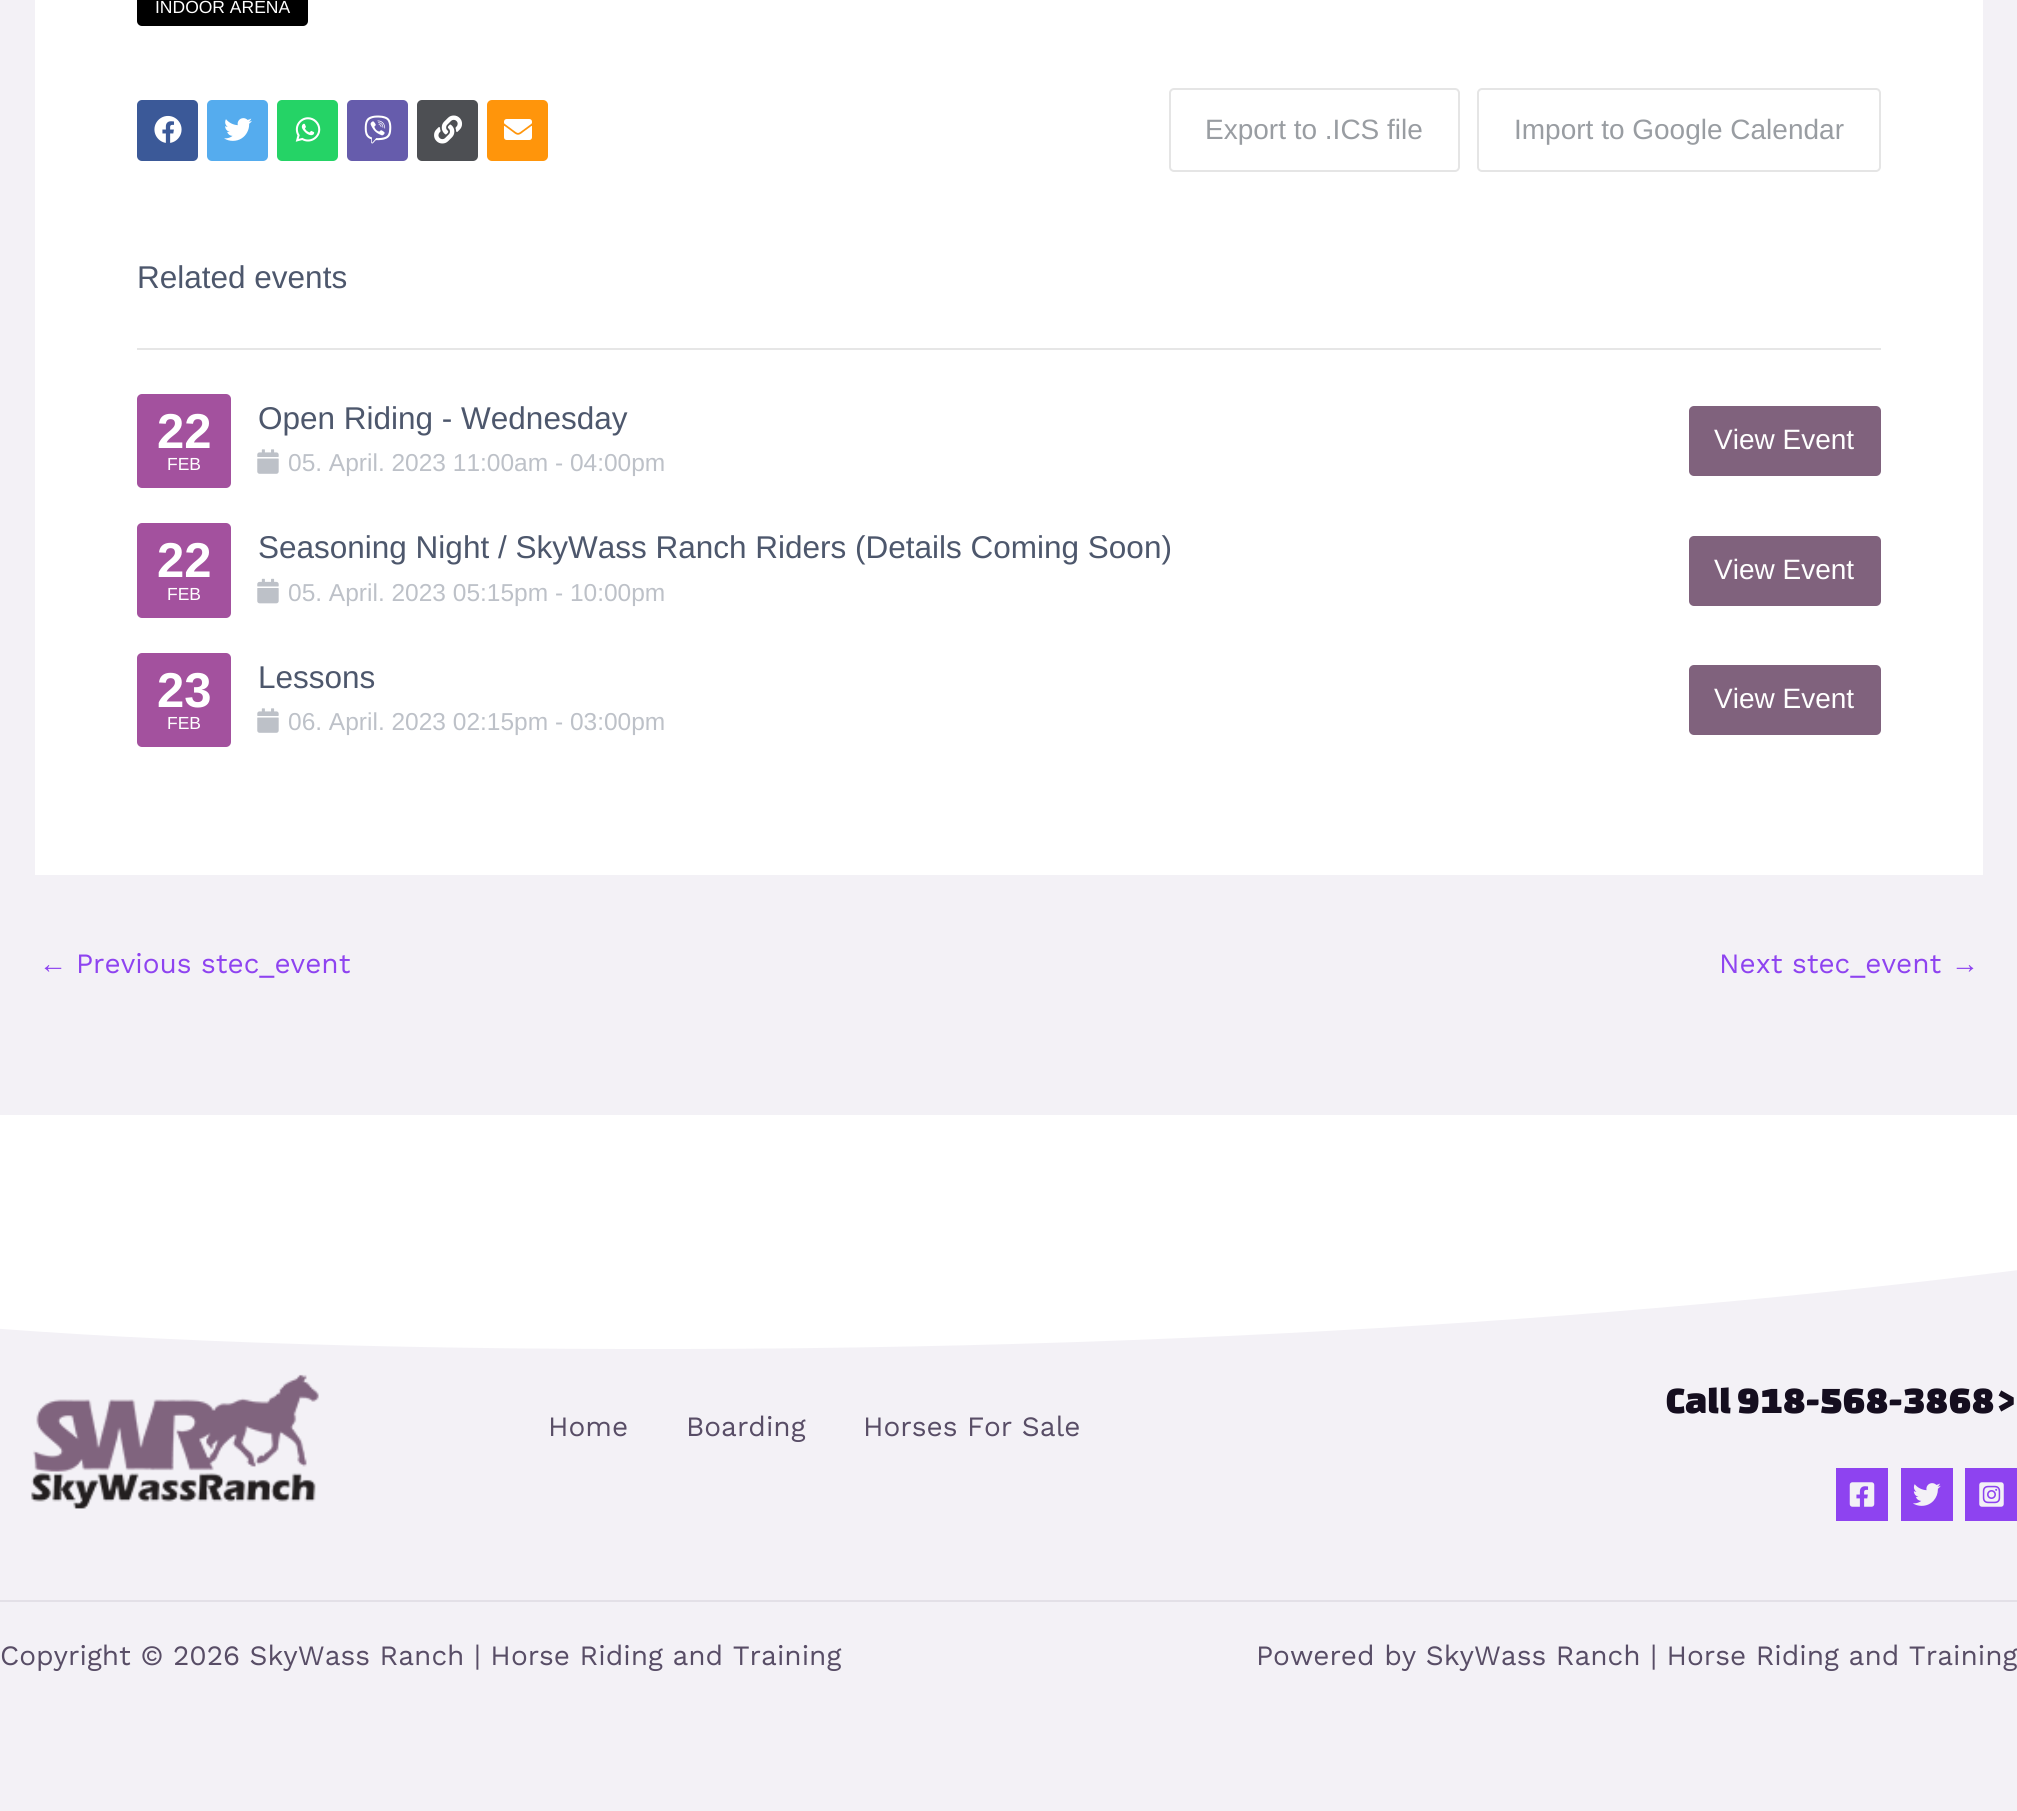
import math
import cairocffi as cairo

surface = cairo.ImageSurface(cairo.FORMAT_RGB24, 2017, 1811)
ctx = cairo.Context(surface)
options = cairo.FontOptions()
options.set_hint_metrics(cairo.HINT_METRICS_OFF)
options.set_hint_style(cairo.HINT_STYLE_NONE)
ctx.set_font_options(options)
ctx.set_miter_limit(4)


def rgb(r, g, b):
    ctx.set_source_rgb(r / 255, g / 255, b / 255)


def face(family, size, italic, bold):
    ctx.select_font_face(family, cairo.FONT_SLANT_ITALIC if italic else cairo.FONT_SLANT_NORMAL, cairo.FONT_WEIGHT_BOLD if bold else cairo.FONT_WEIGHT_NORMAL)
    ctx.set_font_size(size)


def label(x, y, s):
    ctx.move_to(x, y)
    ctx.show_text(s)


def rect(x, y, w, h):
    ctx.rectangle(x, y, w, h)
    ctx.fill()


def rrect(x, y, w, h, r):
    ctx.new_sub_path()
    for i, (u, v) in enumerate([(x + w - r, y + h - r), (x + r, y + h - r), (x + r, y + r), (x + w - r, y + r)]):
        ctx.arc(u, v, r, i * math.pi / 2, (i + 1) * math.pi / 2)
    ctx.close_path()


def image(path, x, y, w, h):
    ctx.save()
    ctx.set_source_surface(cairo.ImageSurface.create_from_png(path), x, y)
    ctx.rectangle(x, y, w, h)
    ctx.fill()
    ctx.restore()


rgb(243, 241, 246)
ctx.paint()
rgb(255, 255, 255)
rect(35, 0, 1948, 875)
rgb(0, 0, 0)
rrect(137, -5, 171, 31, 5)
ctx.fill()
face('Liberation Sans', 17.5, 0, 0)
rgb(255, 255, 255)
label(155, 13, 'INDOOR ARENA')
rgb(59, 89, 152)
rrect(137, 100, 61, 61, 5)
ctx.fill()
image('image0.png', 154, 115, 28, 28)
rgb(85, 172, 238)
rrect(207, 100, 61, 61, 5)
ctx.fill()
image('image1.png', 224, 118, 28, 23)
rgb(37, 211, 102)
rrect(277, 100, 61, 61, 5)
ctx.fill()
image('image2.png', 295, 117, 26, 25)
rgb(102, 92, 172)
rrect(347, 100, 61, 61, 5)
ctx.fill()
image('image3.png', 364, 115, 28, 29)
rgb(77, 79, 83)
rrect(417, 100, 61, 61, 5)
ctx.fill()
image('image4.png', 434, 115, 29, 29)
rgb(255, 149, 11)
rrect(487, 100, 61, 61, 5)
ctx.fill()
image('image5.png', 504, 119, 28, 21)
rrect(1170, 89, 289, 82, 4)
rgb(229, 229, 229)
ctx.stroke()
face('Liberation Sans', 28, 0, 0)
rgb(153, 157, 162)
label(1205, 139, 'Export to .ICS file')
rrect(1478, 89, 402, 82, 4)
rgb(229, 229, 229)
ctx.stroke()
rgb(153, 157, 162)
label(1514, 139, 'Import to Google Calendar')
face('Liberation Sans', 31.5, 0, 0)
rgb(77, 87, 108)
label(137, 288, 'Related events')
rgb(230, 230, 230)
rect(137, 348, 1744, 2)
rgb(163, 81, 158)
rrect(137, 394, 94, 94, 5)
ctx.fill()
face('Liberation Sans', 49, 0, 1)
rgb(255, 255, 255)
label(157, 448, '22')
face('Liberation Sans', 17.5, 0, 0)
label(167, 470, 'FEB')
face('Liberation Sans', 31.5, 0, 0)
rgb(77, 87, 108)
label(258, 429, 'Open Riding - Wednesday')
image('image6.png', 257, 449, 22, 25)
face('Liberation Sans', 24.5, 0, 0)
rgb(189, 193, 200)
label(288, 471, '05. April. 2023 11:00am - 04:00pm')
rgb(128, 98, 125)
rrect(1689, 406, 192, 70, 5)
ctx.fill()
face('Liberation Sans', 28, 0, 0)
rgb(255, 255, 255)
label(1714, 449, 'View Event')
rgb(163, 81, 158)
rrect(137, 523, 94, 95, 5)
ctx.fill()
face('Liberation Sans', 49, 0, 1)
rgb(255, 255, 255)
label(157, 577, '22')
face('Liberation Sans', 17.5, 0, 0)
label(167, 600, 'FEB')
face('Liberation Sans', 31.5, 0, 0)
rgb(77, 87, 108)
label(258, 558, 'Seasoning Night / SkyWass Ranch Riders (Details Coming Soon)')
image('image7.png', 257, 578, 22, 26)
face('Liberation Sans', 24.5, 0, 0)
rgb(189, 193, 200)
label(288, 601, '05. April. 2023 05:15pm - 10:00pm')
rgb(128, 98, 125)
rrect(1689, 536, 192, 70, 5)
ctx.fill()
face('Liberation Sans', 28, 0, 0)
rgb(255, 255, 255)
label(1714, 579, 'View Event')
rgb(163, 81, 158)
rrect(137, 653, 94, 94, 5)
ctx.fill()
face('Liberation Sans', 49, 0, 1)
rgb(255, 255, 255)
label(157, 707, '23')
face('Liberation Sans', 17.5, 0, 0)
label(167, 729, 'FEB')
face('Liberation Sans', 31.5, 0, 0)
rgb(77, 87, 108)
label(258, 688, 'Lessons')
image('image6.png', 257, 708, 22, 25)
face('Liberation Sans', 24.5, 0, 0)
rgb(189, 193, 200)
label(288, 730, '06. April. 2023 02:15pm - 03:00pm')
rgb(128, 98, 125)
rrect(1689, 665, 192, 70, 5)
ctx.fill()
face('Liberation Sans', 28, 0, 0)
rgb(255, 255, 255)
label(1714, 708, 'View Event')
rgb(142, 67, 240)
label(39, 973, '←')
face('Work Sans', 28, 0, 0)
label(76, 973, 'Previous stec_event')
label(1719, 973, 'Next stec_event')
face('Liberation Sans', 28, 0, 0)
label(1951, 973, '→')
rgb(255, 255, 255)
ctx.new_path()
ctx.move_to(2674, 1115)
ctx.line_to(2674, 1131)
ctx.curve_to(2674, 1173, 1874, 1352, 624, 1349)
ctx.curve_to(-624, 1347, -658, 1174, -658, 1131)
ctx.line_to(-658, 1115)
ctx.close_path()
ctx.fill()
image('image8.png', 31, 1374, 288, 135)
face('Changa One', 38.5, 0, 0)
rgb(21, 14, 31)
label(1666, 1413, 'Call 918-568-3868>')
rgb(142, 67, 240)
rect(1836, 1468, 52, 53)
image('image9.png', 1849, 1482, 26, 25)
rect(1901, 1468, 52, 53)
image('image10.png', 1913, 1483, 28, 23)
rect(1965, 1468, 52, 53)
image('image11.png', 1979, 1482, 25, 25)
face('Work Sans', 28, 0, 0)
rgb(88, 77, 102)
label(548, 1436, 'Home')
label(686, 1436, 'Boarding')
label(863, 1436, 'Horses For Sale')
rgb(227, 224, 231)
rect(0, 1600, 2017, 2)
rgb(88, 77, 102)
label(0, 1665, 'Copyright © 2026 SkyWass Ranch | Horse Riding and Training')
label(1256, 1665, 'Powered by SkyWass Ranch | Horse Riding and Training')
surface.write_to_png('render.png')
